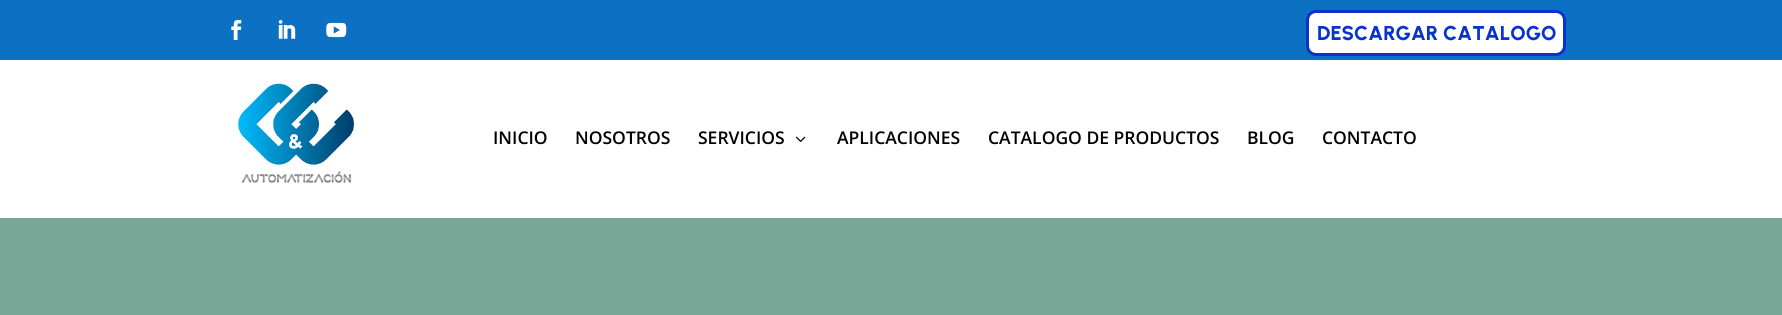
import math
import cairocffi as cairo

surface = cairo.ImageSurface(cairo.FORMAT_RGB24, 1782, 315)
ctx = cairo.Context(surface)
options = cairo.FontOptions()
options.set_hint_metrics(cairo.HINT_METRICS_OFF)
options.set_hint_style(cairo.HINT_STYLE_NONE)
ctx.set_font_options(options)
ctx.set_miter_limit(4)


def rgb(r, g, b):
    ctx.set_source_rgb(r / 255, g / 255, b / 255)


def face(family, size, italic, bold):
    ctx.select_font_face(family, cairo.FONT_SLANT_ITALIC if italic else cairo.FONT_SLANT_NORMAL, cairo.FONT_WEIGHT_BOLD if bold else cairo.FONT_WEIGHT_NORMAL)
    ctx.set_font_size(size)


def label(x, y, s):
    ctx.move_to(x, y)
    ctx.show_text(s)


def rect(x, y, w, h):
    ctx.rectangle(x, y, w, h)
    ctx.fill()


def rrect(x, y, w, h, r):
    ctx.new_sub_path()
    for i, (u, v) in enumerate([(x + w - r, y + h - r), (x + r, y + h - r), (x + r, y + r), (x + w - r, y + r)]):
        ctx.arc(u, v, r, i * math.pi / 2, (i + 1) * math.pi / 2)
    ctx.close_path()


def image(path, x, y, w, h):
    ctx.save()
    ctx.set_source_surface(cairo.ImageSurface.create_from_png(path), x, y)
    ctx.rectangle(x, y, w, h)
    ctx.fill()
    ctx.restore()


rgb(120, 167, 151)
ctx.paint()
rgb(12, 113, 195)
rect(0, 0, 1782, 60)
image('image0.png', 231, 20, 11, 20)
image('image1.png', 278, 20, 18, 19)
image('image2.png', 326, 22, 21, 16)
rgb(255, 255, 255)
rrect(1307.5, 11.5, 257, 43, 8.5)
ctx.fill_preserve()
rgb(9, 51, 204)
ctx.set_line_width(3)
ctx.stroke()
face('Urbanist ExtraBold', 20, 0, 0)
label(1317, 40, 'DESCARGAR CATALOGO')
rgb(255, 255, 255)
rect(0, 60, 1782, 158)
image('image3.png', 238, 83, 116, 100)
face('Open Sans SemiBold', 17.5, 0, 0)
rgb(0, 0, 0)
label(493, 144, 'INICIO')
label(575, 144, 'NOSOTROS')
label(698, 144, 'SERVICIOS')
image('image4.png', 796, 136, 10, 6)
label(837, 144, 'APLICACIONES')
label(988, 144, 'CATALOGO DE PRODUCTOS')
label(1247, 144, 'BLOG')
label(1322, 144, 'CONTACTO')
surface.write_to_png('render.png')
